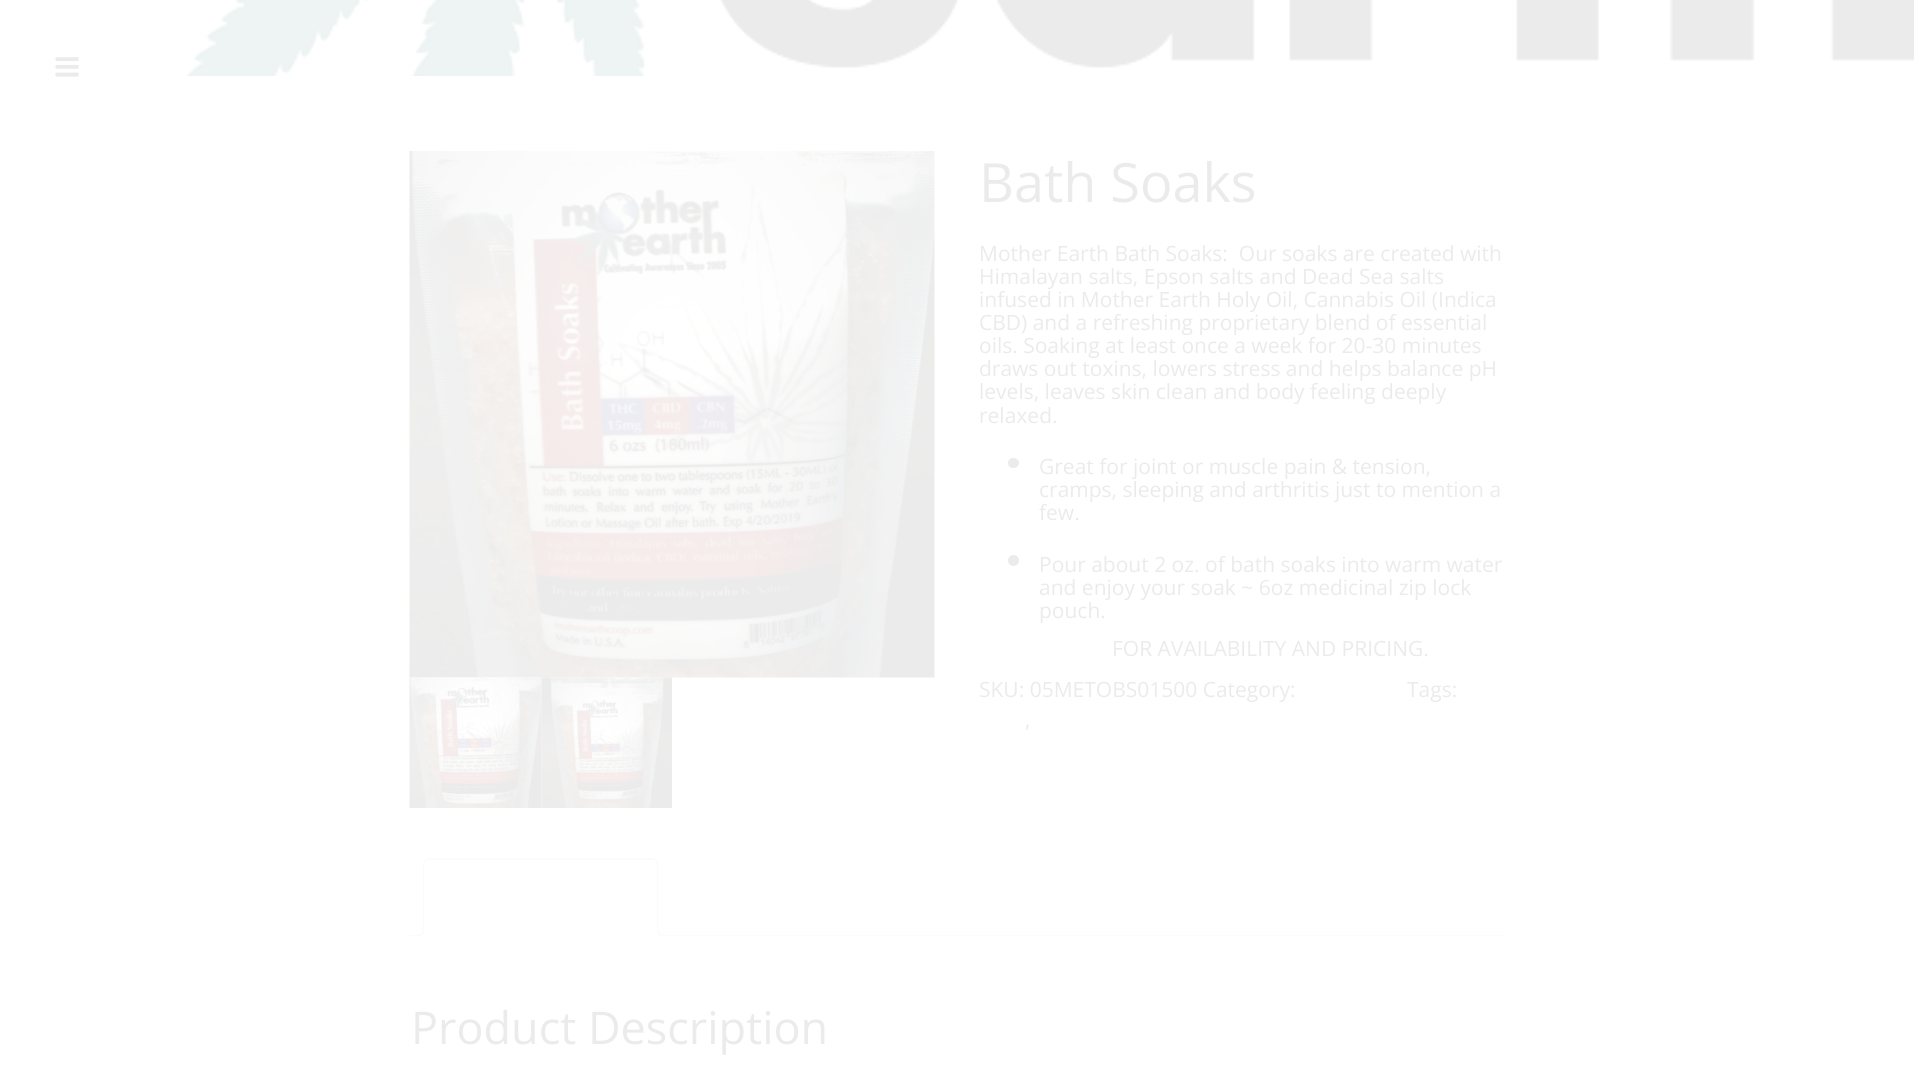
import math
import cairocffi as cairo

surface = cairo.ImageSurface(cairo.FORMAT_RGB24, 1914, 1090)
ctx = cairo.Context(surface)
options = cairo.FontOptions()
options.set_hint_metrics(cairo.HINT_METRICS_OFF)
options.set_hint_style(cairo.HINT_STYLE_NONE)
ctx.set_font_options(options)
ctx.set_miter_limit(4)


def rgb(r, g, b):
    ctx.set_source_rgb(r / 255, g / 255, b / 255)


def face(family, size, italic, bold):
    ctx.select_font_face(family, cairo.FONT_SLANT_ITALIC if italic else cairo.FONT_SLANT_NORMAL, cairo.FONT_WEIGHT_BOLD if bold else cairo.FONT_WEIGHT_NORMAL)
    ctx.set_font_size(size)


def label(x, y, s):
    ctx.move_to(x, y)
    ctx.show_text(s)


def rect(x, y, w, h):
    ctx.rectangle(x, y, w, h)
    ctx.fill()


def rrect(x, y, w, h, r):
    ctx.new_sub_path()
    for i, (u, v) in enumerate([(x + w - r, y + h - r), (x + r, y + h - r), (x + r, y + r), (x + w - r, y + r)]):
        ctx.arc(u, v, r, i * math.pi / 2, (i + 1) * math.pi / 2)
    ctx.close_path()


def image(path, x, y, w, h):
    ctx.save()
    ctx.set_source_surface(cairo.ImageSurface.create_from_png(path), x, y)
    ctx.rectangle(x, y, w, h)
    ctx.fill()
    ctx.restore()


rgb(255, 255, 255)
ctx.paint()
image('image0.png', 55, 57, 24, 20)
image('image1.png', 186, 0, 1728, 76)
image('image2.png', 409, 151, 526, 527)
image('image3.png', 409, 677, 133, 131)
image('image4.png', 541, 677, 131, 131)
face('Open Sans', 54, 0, 0)
rgb(235, 235, 235)
label(979, 202, 'Bath Soaks')
face('Open Sans', 21, 0, 0)
label(979, 261, 'Mother Earth Bath Soaks:  Our soaks are created with')
label(979, 284, 'Himalayan salts, Epson salts and Dead Sea salts')
label(979, 307, 'infused in Mother Earth Holy Oil, Cannabis Oil (Indica')
label(979, 330, 'CBD) and a refreshing proprietary blend of essential')
label(979, 353, 'oils. Soaking at least once a week for 20-30 minutes')
label(979, 376, 'draws out toxins, lowers stress and helps balance pH')
label(979, 399, 'levels, leaves skin clean and body feeling deeply')
label(979, 423, 'relaxed.')
rrect(1008, 458, 11, 10, 5)
ctx.fill()
label(1039, 474, 'Great for joint or muscle pain & tension,')
label(1039, 497, 'cramps, sleeping and arthritis just to mention a')
label(1039, 520, 'few.')
ctx.new_path()
ctx.arc(1013.5, 560.5, 5.5, 0, 2 * math.pi)
ctx.fill()
label(1039, 572, 'Pour about 2 oz. of bath soaks into warm water')
label(1039, 595, 'and enjoy your soak ~ 6oz medicinal zip lock')
label(1039, 618, 'pouch.')
label(1112, 656, 'FOR AVAILABILITY AND PRICING.')
label(979, 697, 'SKU: 05METOBS01500 Category:')
label(1407, 697, 'Tags:')
label(1025, 727, ',')
rgb(251, 251, 252)
rect(410, 935, 1095, 1)
rgb(255, 255, 255)
ctx.new_path()
ctx.move_to(429, 858)
ctx.line_to(653, 858)
ctx.curve_to(656.5, 858, 659, 860.5, 659, 864)
ctx.line_to(659, 936)
ctx.line_to(423, 936)
ctx.line_to(423, 864)
ctx.curve_to(423, 860.5, 425.5, 858, 429, 858)
ctx.close_path()
ctx.fill()
rgb(251, 251, 252)
ctx.new_path()
ctx.move_to(429, 858)
ctx.curve_to(428, 858, 426, 859, 425, 860)
ctx.line_to(426, 861)
ctx.line_to(429, 860)
ctx.line_to(652, 860)
ctx.curve_to(653, 860, 655, 860, 655, 861)
ctx.line_to(657, 860)
ctx.curve_to(656, 859, 654, 858, 652, 858)
ctx.close_path()
ctx.fill()
ctx.new_path()
ctx.move_to(657, 860)
ctx.curve_to(658, 861, 658, 863, 658, 864)
ctx.line_to(658, 936)
ctx.line_to(656, 934)
ctx.line_to(657, 934)
ctx.line_to(657, 864)
ctx.line_to(655, 861)
ctx.close_path()
ctx.fill()
ctx.new_path()
ctx.move_to(423, 936)
ctx.line_to(425, 934)
ctx.line_to(424, 934)
ctx.line_to(424, 864)
ctx.line_to(426, 861)
ctx.line_to(425, 860)
ctx.curve_to(424, 861, 423, 862, 423, 864)
ctx.close_path()
ctx.fill()
ctx.save()
ctx.rectangle(410, 858, 1095, 78)
ctx.clip()
rgb(255, 255, 255)
ctx.new_path()
ctx.move_to(420, 936)
ctx.line_to(420, 939)
ctx.curve_to(425, 939, 428, 937.5, 428, 932)
ctx.line_to(424, 932)
ctx.curve_to(423.5, 934, 422, 935.5, 420, 936)
ctx.close_path()
ctx.fill()
ctx.restore()
ctx.set_fill_rule(cairo.FILL_RULE_EVEN_ODD)
ctx.new_path()
ctx.move_to(417, 928.5)
ctx.line_to(424.5, 928.5)
ctx.curve_to(424.5, 934, 422.5, 936, 417, 936)
ctx.close_path()
ctx.move_to(417, 928.5)
ctx.line_to(423, 928.5)
ctx.curve_to(423, 933, 421.5, 934.5, 417, 934.5)
ctx.close_path()
ctx.fill()
ctx.save()
ctx.set_fill_rule(cairo.FILL_RULE_WINDING)
ctx.rectangle(410, 858, 1095, 78)
ctx.clip()
rgb(255, 255, 255)
ctx.new_path()
ctx.move_to(654, 932)
ctx.curve_to(654, 937.5, 657, 939, 662, 939)
ctx.line_to(662, 936)
ctx.curve_to(660, 935.5, 658, 934, 657.5, 932)
ctx.close_path()
ctx.fill()
ctx.restore()
ctx.new_path()
ctx.move_to(657, 928.5)
ctx.line_to(664.5, 928.5)
ctx.line_to(664.5, 936)
ctx.curve_to(660.5, 936, 657, 934.5, 657, 930)
ctx.close_path()
ctx.move_to(658.5, 928.5)
ctx.line_to(664.5, 928.5)
ctx.line_to(664.5, 934.5)
ctx.curve_to(661.5, 934.5, 658.5, 933.5, 658.5, 930)
ctx.close_path()
ctx.fill()
face('Open Sans', 45, 0, 0)
rgb(235, 235, 235)
label(411, 1044, 'Product Description')
surface.write_to_png('render.png')
